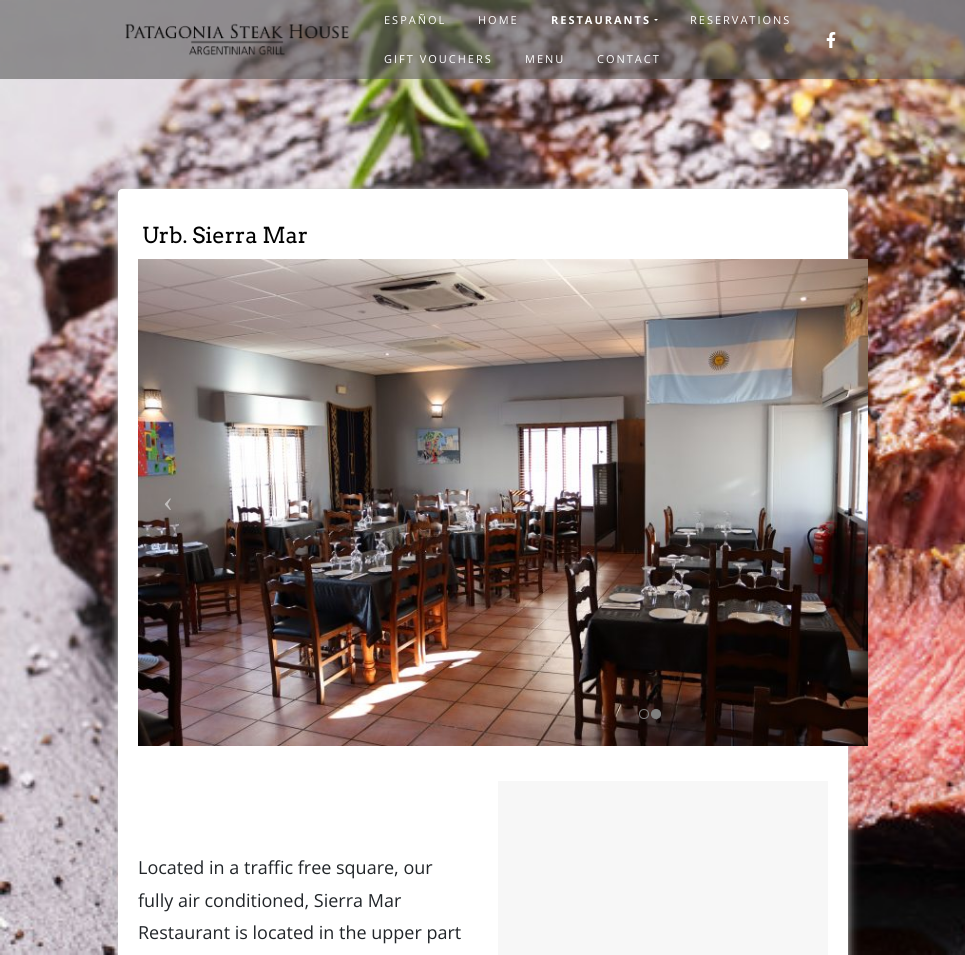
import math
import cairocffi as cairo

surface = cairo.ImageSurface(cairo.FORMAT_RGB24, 965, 955)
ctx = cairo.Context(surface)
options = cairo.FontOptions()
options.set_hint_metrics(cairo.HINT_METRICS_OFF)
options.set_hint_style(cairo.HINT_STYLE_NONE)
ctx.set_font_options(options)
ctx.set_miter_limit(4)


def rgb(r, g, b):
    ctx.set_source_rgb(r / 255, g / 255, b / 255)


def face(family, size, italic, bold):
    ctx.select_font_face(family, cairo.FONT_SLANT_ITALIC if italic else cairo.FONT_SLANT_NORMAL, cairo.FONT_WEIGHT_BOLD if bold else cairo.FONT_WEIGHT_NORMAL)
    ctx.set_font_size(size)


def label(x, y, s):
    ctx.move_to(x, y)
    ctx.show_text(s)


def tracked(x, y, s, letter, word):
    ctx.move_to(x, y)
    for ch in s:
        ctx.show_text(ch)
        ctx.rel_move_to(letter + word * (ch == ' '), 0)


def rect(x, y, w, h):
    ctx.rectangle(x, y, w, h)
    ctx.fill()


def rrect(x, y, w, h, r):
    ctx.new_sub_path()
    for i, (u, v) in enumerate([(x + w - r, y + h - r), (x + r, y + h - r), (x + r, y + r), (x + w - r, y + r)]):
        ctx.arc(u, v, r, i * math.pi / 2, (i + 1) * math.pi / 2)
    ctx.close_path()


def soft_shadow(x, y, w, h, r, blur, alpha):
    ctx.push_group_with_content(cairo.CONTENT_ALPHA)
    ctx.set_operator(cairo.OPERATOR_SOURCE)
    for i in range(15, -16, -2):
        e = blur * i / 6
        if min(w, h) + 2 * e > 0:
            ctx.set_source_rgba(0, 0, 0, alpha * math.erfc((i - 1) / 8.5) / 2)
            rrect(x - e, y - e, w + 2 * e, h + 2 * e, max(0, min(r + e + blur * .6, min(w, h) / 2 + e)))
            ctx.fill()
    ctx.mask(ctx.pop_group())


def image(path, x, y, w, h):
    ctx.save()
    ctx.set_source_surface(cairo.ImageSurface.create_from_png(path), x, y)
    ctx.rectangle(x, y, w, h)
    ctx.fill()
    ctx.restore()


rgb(255, 255, 255)
ctx.paint()
image('image0.png', 0, 0, 965, 955)
ctx.set_source_rgba(0.349, 0.349, 0.349, 0.6)
rect(0, 0, 965, 79)
image('image1.png', 125, 23, 224, 33)
face('Open Sans', 11, 0, 0)
rgb(255, 255, 255)
tracked(384, 24, 'ESPAÑOL', 2, 0)
tracked(478, 24, 'HOME', 2, 0)
face('Open Sans', 11, 0, 1)
tracked(551, 24, 'RESTAURANTS', 2, 0)
ctx.new_path()
ctx.move_to(654, 19)
ctx.line_to(658, 19)
ctx.line_to(656, 21)
ctx.close_path()
ctx.fill()
face('Open Sans', 11, 0, 0)
tracked(690, 24, 'RESERVATIONS', 2, 0)
tracked(384, 63, 'GIFT VOUCHERS', 2, 0)
tracked(525, 63, 'MENU', 2, 0)
tracked(597, 63, 'CONTACT', 2, 0)
image('image2.png', 826, 32, 10, 16)
rgb(204, 204, 204)
soft_shadow(118, 189, 730, 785, 4, 5, 1)
rgb(255, 255, 255)
rrect(118, 189, 730, 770, 4)
ctx.fill()
face('Arvo', 22, 0, 0)
rgb(0, 0, 0)
label(142, 243, 'Urb. Sierra Mar')
image('image3.png', 138, 259, 730, 487)
face('Liberation Serif', 30, 0, 0)
rgb(192, 189, 188)
label(163, 511, '‹')
ctx.new_path()
ctx.arc(644, 714, 4.5, 0, 2 * math.pi)
rgb(128, 128, 128)
ctx.set_line_width(1)
ctx.stroke()
ctx.arc(656, 714, 4.5, 0, 2 * math.pi)
ctx.fill_preserve()
ctx.stroke()
face('Open Sans', 18, 0, 0)
rgb(33, 37, 41)
label(138, 874, 'Located in a traffic free square, our')
label(138, 907, 'fully air conditioned, Sierra Mar')
label(138, 939, 'Restaurant is located in the upper part')
rgb(247, 247, 247)
rect(498, 781, 330, 174)
surface.write_to_png('render.png')
